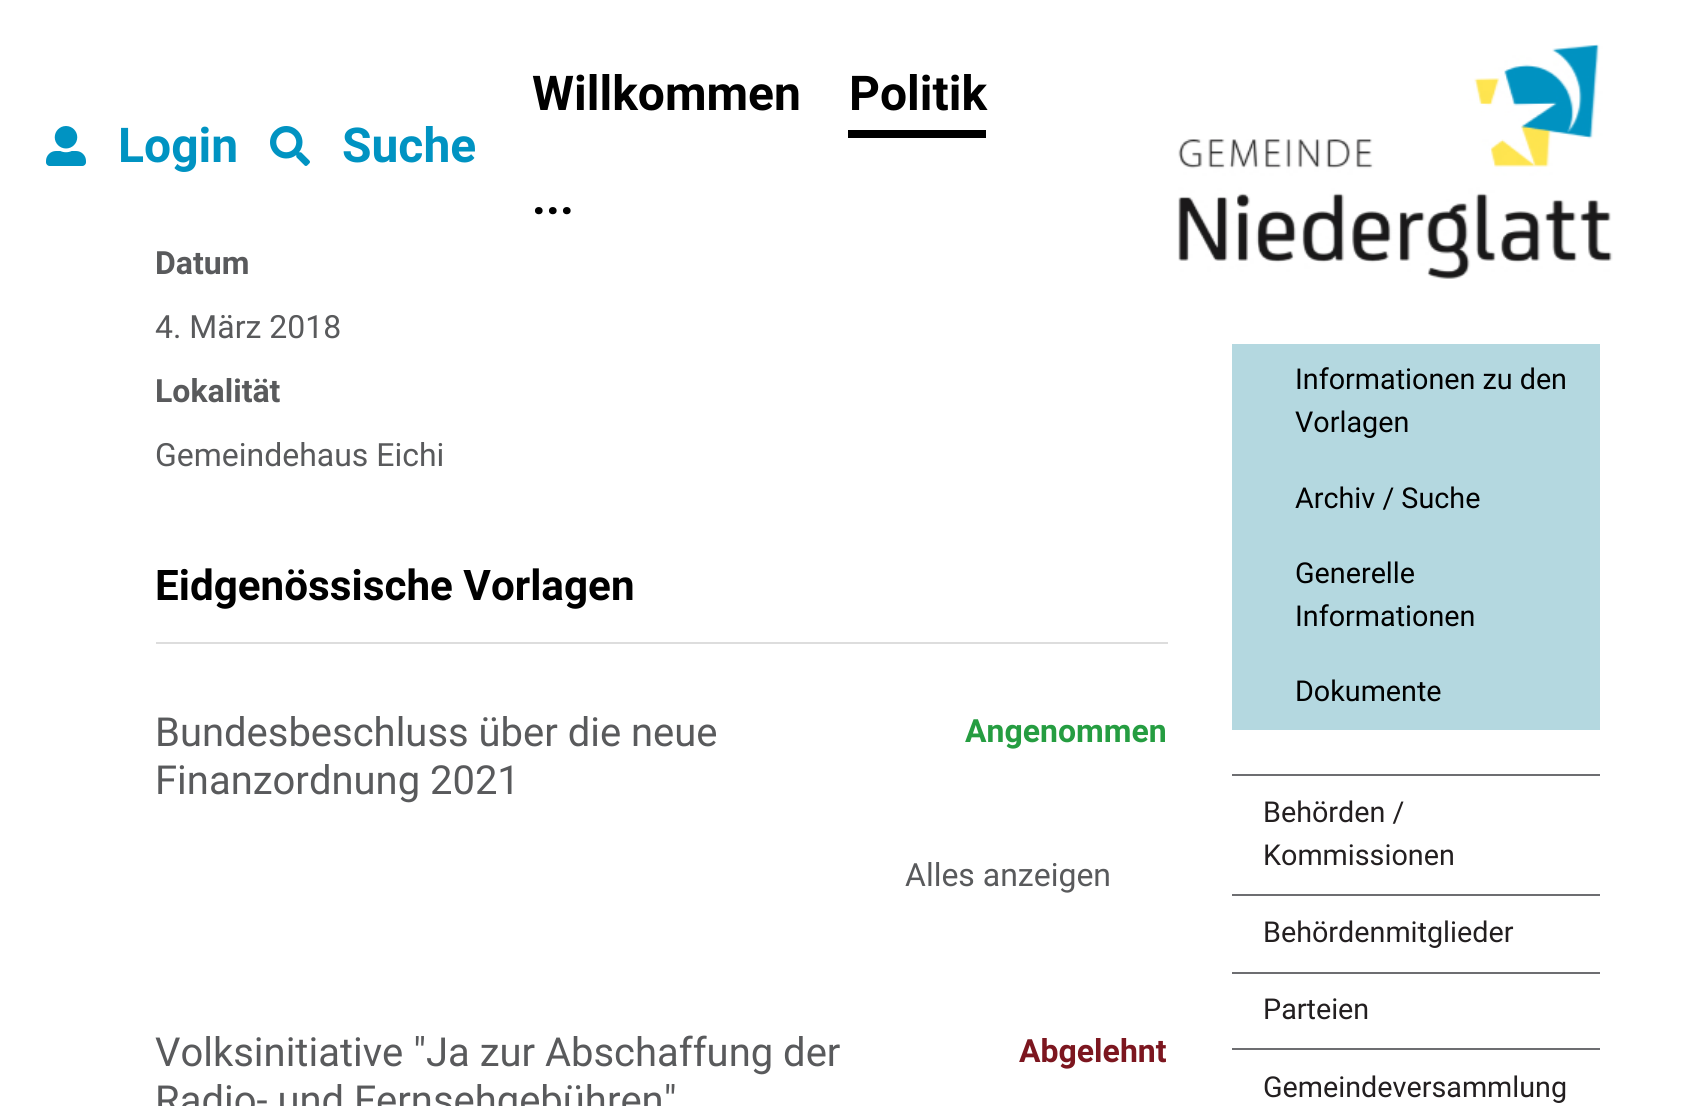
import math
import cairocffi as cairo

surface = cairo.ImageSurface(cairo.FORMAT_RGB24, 1682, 1106)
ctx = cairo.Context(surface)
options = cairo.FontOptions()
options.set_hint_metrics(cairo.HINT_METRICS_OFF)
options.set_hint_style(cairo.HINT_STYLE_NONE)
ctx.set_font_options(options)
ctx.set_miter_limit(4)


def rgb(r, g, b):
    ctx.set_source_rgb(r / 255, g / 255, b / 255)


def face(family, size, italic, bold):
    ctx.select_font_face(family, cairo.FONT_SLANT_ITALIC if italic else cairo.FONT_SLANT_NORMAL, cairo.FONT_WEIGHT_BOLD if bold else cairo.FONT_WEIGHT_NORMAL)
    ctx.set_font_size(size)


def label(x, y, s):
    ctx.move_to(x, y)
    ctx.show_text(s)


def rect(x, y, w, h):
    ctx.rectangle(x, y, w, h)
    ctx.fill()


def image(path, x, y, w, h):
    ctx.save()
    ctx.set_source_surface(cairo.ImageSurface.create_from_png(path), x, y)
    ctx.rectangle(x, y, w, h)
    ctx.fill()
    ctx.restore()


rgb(255, 255, 255)
ctx.paint()
image('image0.png', 46, 126, 40, 40)
face('Roboto', 48, 0, 1)
rgb(0, 147, 194)
label(118, 162, 'Login')
image('image1.png', 270, 126, 40, 40)
label(342, 162, 'Suche')
rgb(0, 0, 0)
label(532, 110, 'Willkommen')
label(849, 110, 'Politik')
rect(848, 130, 138, 8)
label(532, 214, '...')
image('image2.png', 1178, 44, 435, 235)
face('Roboto', 32, 0, 1)
rgb(89, 90, 92)
label(155, 274, 'Datum')
face('Roboto', 32, 0, 0)
label(155, 338, '4. März 2018')
face('Roboto', 32, 0, 1)
label(155, 402, 'Lokalität')
face('Roboto', 32, 0, 0)
label(155, 466, 'Gemeindehaus Eichi')
face('Roboto', 42.2, 0, 1)
rgb(0, 0, 0)
label(155, 600, 'Eidgenössische Vorlagen')
rgb(221, 221, 221)
rect(156, 642, 1012, 2)
face('Roboto', 40, 0, 0)
rgb(89, 90, 92)
label(155, 746, 'Bundesbeschluss über die neue')
label(155, 794, 'Finanzordnung 2021')
face('Roboto', 32, 0, 1)
rgb(37, 157, 65)
label(965, 742, 'Angenommen')
face('Roboto', 32, 0, 0)
rgb(89, 90, 92)
label(905, 886, 'Alles anzeigen')
face('Roboto', 40, 0, 0)
label(155, 1066, 'Volksinitiative "Ja zur Abschaffung der')
label(155, 1114, 'Radio- und Fernsehgebühren"')
face('Roboto', 32, 0, 1)
rgb(124, 22, 31)
label(1019, 1062, 'Abgelehnt')
rgb(109, 110, 113)
rect(1232, 774, 368, 2)
rgb(180, 216, 224)
rect(1232, 344, 368, 386)
face('Roboto', 28.75, 0, 0)
rgb(0, 0, 0)
label(1295, 389, 'Informationen zu den')
label(1295, 432, 'Vorlagen')
label(1295, 508, 'Archiv / Suche')
label(1295, 583, 'Generelle')
label(1295, 626, 'Informationen')
label(1295, 701, 'Dokumente')
rgb(109, 110, 113)
rect(1232, 894, 368, 2)
rgb(35, 31, 32)
label(1263, 822, 'Behörden /')
label(1263, 865, 'Kommissionen')
rgb(109, 110, 113)
rect(1232, 972, 368, 2)
rgb(35, 31, 32)
label(1263, 942, 'Behördenmitglieder')
rgb(109, 110, 113)
rect(1232, 1048, 368, 2)
rgb(35, 31, 32)
label(1263, 1019, 'Parteien')
label(1263, 1097, 'Gemeindeversammlung')
surface.write_to_png('render.png')
